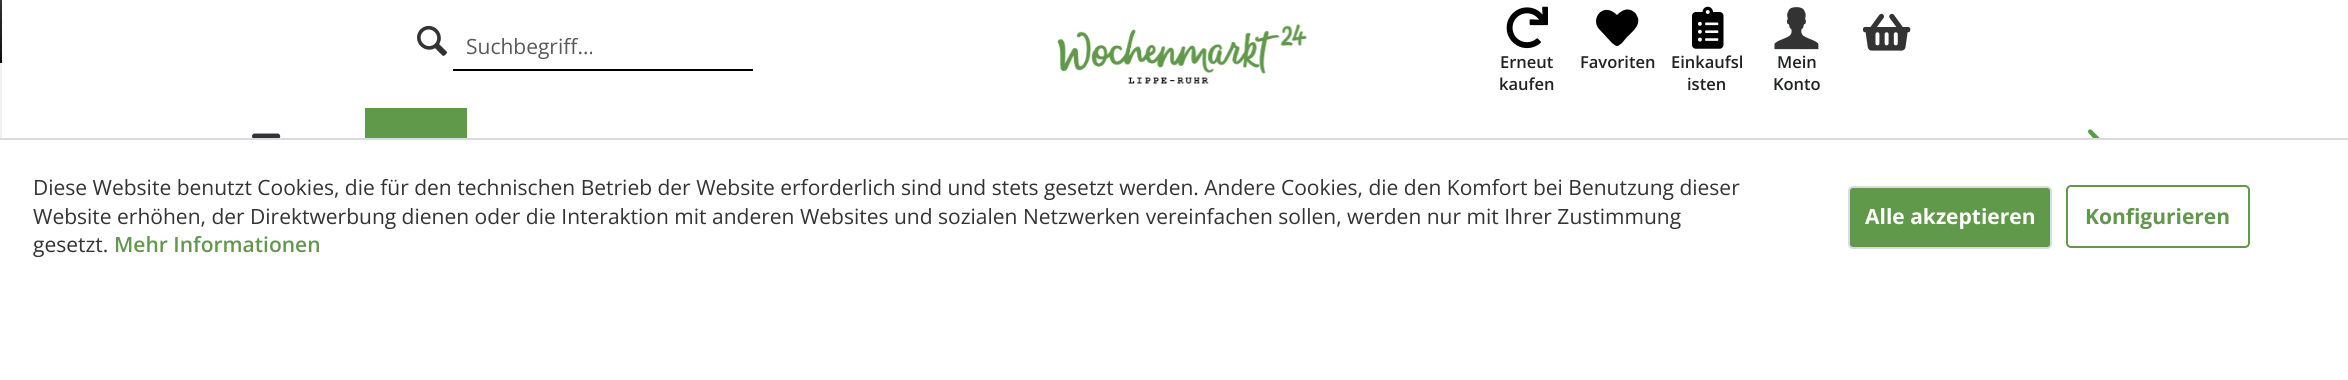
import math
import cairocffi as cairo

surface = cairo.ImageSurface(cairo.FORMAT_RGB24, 2348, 380)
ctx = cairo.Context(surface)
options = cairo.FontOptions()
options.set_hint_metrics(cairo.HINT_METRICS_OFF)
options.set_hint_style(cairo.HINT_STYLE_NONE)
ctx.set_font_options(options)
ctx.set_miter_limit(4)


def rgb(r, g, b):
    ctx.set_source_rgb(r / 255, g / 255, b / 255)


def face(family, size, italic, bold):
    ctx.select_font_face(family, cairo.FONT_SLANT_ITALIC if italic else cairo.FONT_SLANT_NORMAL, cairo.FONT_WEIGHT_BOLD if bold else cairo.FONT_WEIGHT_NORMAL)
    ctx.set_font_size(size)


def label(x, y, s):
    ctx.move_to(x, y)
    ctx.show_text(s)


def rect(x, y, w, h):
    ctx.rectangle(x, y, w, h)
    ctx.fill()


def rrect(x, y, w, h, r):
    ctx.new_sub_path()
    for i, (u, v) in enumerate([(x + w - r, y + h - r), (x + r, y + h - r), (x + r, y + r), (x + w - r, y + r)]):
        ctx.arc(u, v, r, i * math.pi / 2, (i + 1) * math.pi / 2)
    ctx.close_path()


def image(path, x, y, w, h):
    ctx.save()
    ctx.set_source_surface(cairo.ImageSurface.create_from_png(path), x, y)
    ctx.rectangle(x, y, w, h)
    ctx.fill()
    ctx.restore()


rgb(255, 255, 255)
ctx.paint()
rgb(241, 241, 241)
rect(0, 63, 2, 75)
gradient = cairo.LinearGradient(-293, 0, -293, 63)
gradient.add_color_stop_rgba(0, 0.2, 0.2, 0.2, 1)
gradient.add_color_stop_rgba(1, 0.051, 0.051, 0.051, 1)
ctx.set_source(gradient)
rect(0, 0, 2, 63)
image('image0.png', 417, 25, 30, 31)
rgb(0, 0, 0)
rect(453, 69, 300, 2)
face('Open Sans', 21, 0, 0)
rgb(89, 89, 89)
label(466, 54, 'Suchbegriff...')
image('image1.png', 1057, 24, 250, 60)
image('image2.png', 1863, 13, 48, 38)
image('image3.png', 1506, 6, 42, 43)
face('Open Sans SemiBold', 16.5, 0, 0)
rgb(32, 33, 36)
label(1500, 68, 'Erneut')
label(1499, 90, 'kaufen')
rgb(0, 0, 0)
ctx.new_path()
ctx.move_to(1634, 12)
ctx.curve_to(1628, 7, 1622, 10, 1617, 15)
ctx.curve_to(1603, 1, 1590, 19, 1599, 29)
ctx.line_to(1612, 43)
ctx.curve_to(1617, 47, 1617, 47, 1622, 43)
ctx.line_to(1627, 37)
ctx.curve_to(1632, 32, 1640, 26, 1638, 18)
ctx.curve_to(1637, 16, 1636, 13, 1634, 12)
ctx.close_path()
ctx.fill()
rgb(32, 33, 36)
label(1580, 68, 'Favoriten')
image('image4.png', 1692, 6, 32, 43)
label(1671, 68, 'Einkaufsl')
label(1687, 90, 'isten')
image('image5.png', 1774, 7, 45, 43)
label(1777, 68, 'Mein')
label(1773, 90, 'Konto')
image('image6.png', 252, 133, 29, 5)
rgb(96, 153, 74)
rect(365, 108, 102, 30)
image('image7.png', 2088, 129, 12, 9)
rgb(218, 218, 229)
rect(0, 138, 2348, 2)
face('Open Sans', 21, 0, 0)
rgb(51, 51, 51)
label(33, 195, 'Diese Website benutzt Cookies, die für den technischen Betrieb der Website erforderlich sind und stets gesetzt werden. Andere Cookies, die den Komfort bei Benutzung dieser')
label(33, 224, 'Website erhöhen, der Direktwerbung dienen oder die Interaktion mit anderen Websites und sozialen Netzwerken vereinfachen sollen, werden nur mit Ihrer Zustimmung')
label(33, 252, 'gesetzt.')
face('Open Sans SemiBold', 21, 0, 0)
rgb(98, 152, 78)
label(114, 252, 'Mehr Informationen')
rgb(96, 153, 74)
rrect(1849, 187, 202, 61, 4)
ctx.fill_preserve()
rgb(218, 218, 229)
ctx.stroke()
face('Open Sans', 21, 0, 1)
rgb(255, 255, 255)
label(1865, 224, 'Alle akzeptieren')
rrect(2067, 186, 182, 61, 4)
rgb(96, 153, 74)
ctx.stroke()
rgb(98, 152, 78)
label(2085, 224, 'Konfigurieren')
surface.write_to_png('render.png')
